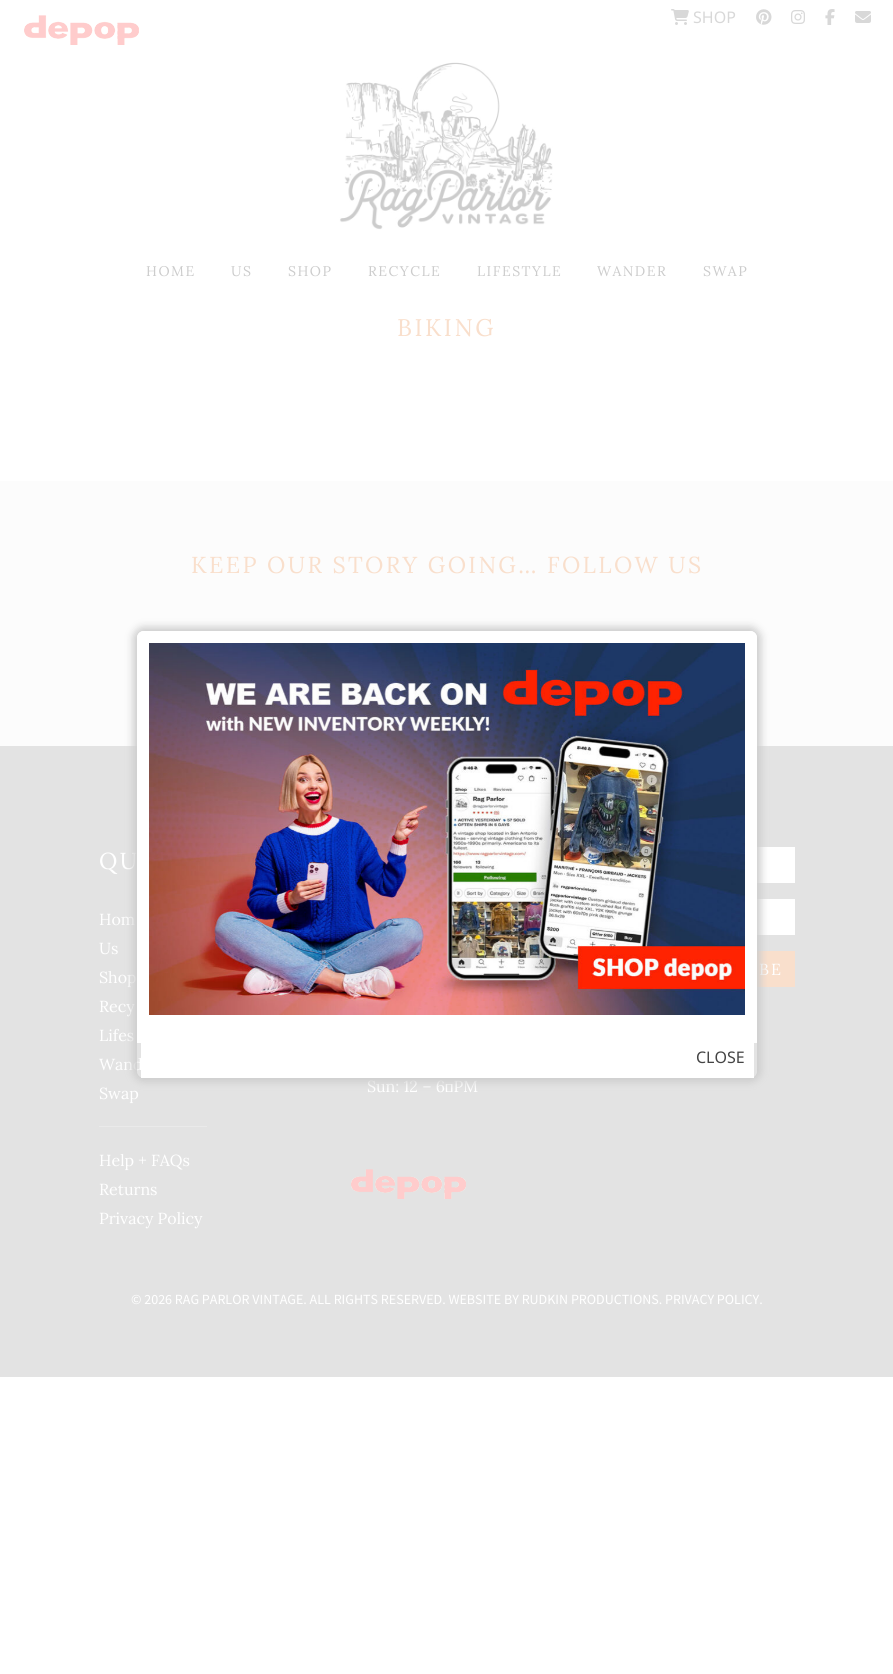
import math
import cairocffi as cairo

surface = cairo.ImageSurface(cairo.FORMAT_RGB24, 893, 1674)
ctx = cairo.Context(surface)
options = cairo.FontOptions()
options.set_hint_metrics(cairo.HINT_METRICS_OFF)
options.set_hint_style(cairo.HINT_STYLE_NONE)
ctx.set_font_options(options)
ctx.set_miter_limit(4)


def rgb(r, g, b):
    ctx.set_source_rgb(r / 255, g / 255, b / 255)


def face(family, size, italic, bold):
    ctx.select_font_face(family, cairo.FONT_SLANT_ITALIC if italic else cairo.FONT_SLANT_NORMAL, cairo.FONT_WEIGHT_BOLD if bold else cairo.FONT_WEIGHT_NORMAL)
    ctx.set_font_size(size)


def label(x, y, s):
    ctx.move_to(x, y)
    ctx.show_text(s)


def tracked(x, y, s, letter, word):
    ctx.move_to(x, y)
    for ch in s:
        ctx.show_text(ch)
        ctx.rel_move_to(letter + word * (ch == ' '), 0)


def rect(x, y, w, h):
    ctx.rectangle(x, y, w, h)
    ctx.fill()


def rrect(x, y, w, h, r):
    ctx.new_sub_path()
    for i, (u, v) in enumerate([(x + w - r, y + h - r), (x + r, y + h - r), (x + r, y + r), (x + w - r, y + r)]):
        ctx.arc(u, v, r, i * math.pi / 2, (i + 1) * math.pi / 2)
    ctx.close_path()


def soft_shadow(x, y, w, h, r, blur, alpha):
    ctx.push_group_with_content(cairo.CONTENT_ALPHA)
    ctx.set_operator(cairo.OPERATOR_SOURCE)
    for i in range(15, -16, -2):
        e = blur * i / 6
        if min(w, h) + 2 * e > 0:
            ctx.set_source_rgba(0, 0, 0, alpha * math.erfc((i - 1) / 8.5) / 2)
            rrect(x - e, y - e, w + 2 * e, h + 2 * e, max(0, min(r + e + blur * .6, min(w, h) / 2 + e)))
            ctx.fill()
    ctx.mask(ctx.pop_group())


def image(path, x, y, w, h):
    ctx.save()
    ctx.set_source_surface(cairo.ImageSurface.create_from_png(path), x, y)
    ctx.rectangle(x, y, w, h)
    ctx.fill()
    ctx.restore()


rgb(255, 255, 255)
ctx.paint()
image('image0.png', 24, 15, 115, 30)
image('image1.png', 671, 9, 18, 16)
face('Noto Sans', 16, 0, 0)
rgb(216, 216, 216)
label(693, 23, 'SHOP')
image('image2.png', 756, 9, 16, 16)
image('image3.png', 791, 10, 14, 14)
image('image4.png', 825, 9, 10, 16)
image('image5.png', 855, 11, 16, 12)
image('image6.png', 339, 62, 214, 168)
face('Lora', 14, 0, 0)
rgb(204, 204, 204)
tracked(146, 276, 'HOME', 1.5, 0)
tracked(231, 276, 'US', 1.5, 0)
tracked(288, 276, 'SHOP', 1.5, 0)
tracked(368, 276, 'RECYCLE', 1.5, 0)
tracked(477, 276, 'LIFESTYLE', 1.5, 0)
tracked(597, 276, 'WANDER', 1.5, 0)
tracked(703, 276, 'SWAP', 1.5, 0)
face('Lora', 24, 0, 0)
rgb(249, 223, 204)
tracked(397, 336, 'BIKING', 2.5, 0)
rgb(252, 252, 252)
rect(0, 481, 893, 265)
face('Lora', 23.1, 0, 0)
rgb(249, 223, 204)
tracked(191, 573, 'KEEP OUR STORY GOING… FOLLOW US', 2.3, 0)
rgb(227, 227, 227)
rect(0, 746, 893, 631)
rgb(255, 255, 255)
tracked(99, 869, 'QU', 2.3, 0)
face('Lora', 16, 0, 0)
label(99, 925, 'Hom')
label(99, 954, 'Us')
label(99, 983, 'Shop')
label(99, 1012, 'Recy')
label(99, 1041, 'Lifes')
label(99, 1070, 'Wand')
label(99, 1099, 'Swap')
rgb(234, 234, 234)
rect(99, 1126, 108, 1)
rgb(255, 255, 255)
label(99, 1166, 'Help + FAQs')
label(99, 1195, 'Returns')
label(99, 1224, 'Privacy Policy')
rect(757, 847, 38, 36)
rect(757, 899, 38, 36)
rgb(249, 223, 204)
rect(757, 951, 38, 36)
rgb(255, 255, 255)
tracked(759, 975, 'BE', 2, 0)
label(367, 1092, 'Sun: 12 – 6 PM')
image('image7.png', 351, 1169, 115, 30)
face('Source Sans Pro', 14, 0, 0)
label(131, 1304, '© 2026 RAG PARLOR VINTAGE. ALL RIGHTS RESERVED. WEBSITE BY RUDKIN PRODUCTIONS. PRIVACY POLICY.')
ctx.save()
ctx.set_fill_rule(cairo.FILL_RULE_EVEN_ODD)
ctx.new_path()
ctx.move_to(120, 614)
ctx.line_to(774, 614)
ctx.line_to(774, 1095)
ctx.line_to(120, 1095)
ctx.close_path()
ctx.move_to(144, 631)
ctx.line_to(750, 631)
ctx.curve_to(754, 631, 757, 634, 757, 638)
ctx.line_to(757, 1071)
ctx.curve_to(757, 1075, 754, 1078, 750, 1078)
ctx.line_to(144, 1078)
ctx.curve_to(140, 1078, 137, 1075, 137, 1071)
ctx.line_to(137, 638)
ctx.curve_to(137, 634, 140, 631, 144, 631)
ctx.close_path()
ctx.clip()
rgb(204, 204, 204)
soft_shadow(133, 627, 628, 455, 11, 4, 1)
ctx.restore()
ctx.new_path()
ctx.move_to(144, 631)
ctx.line_to(750, 631)
ctx.curve_to(754, 631, 757, 634, 757, 638)
ctx.line_to(757, 1043)
ctx.line_to(137, 1043)
ctx.line_to(137, 638)
ctx.curve_to(137, 634, 140, 631, 144, 631)
ctx.close_path()
ctx.fill()
rect(141, 1043, 613, 35)
image('image8.png', 149, 643, 596, 372)
face('Noto Sans', 16, 0, 0)
rgb(68, 68, 68)
label(696, 1063, 'CLOSE')
surface.write_to_png('render.png')
